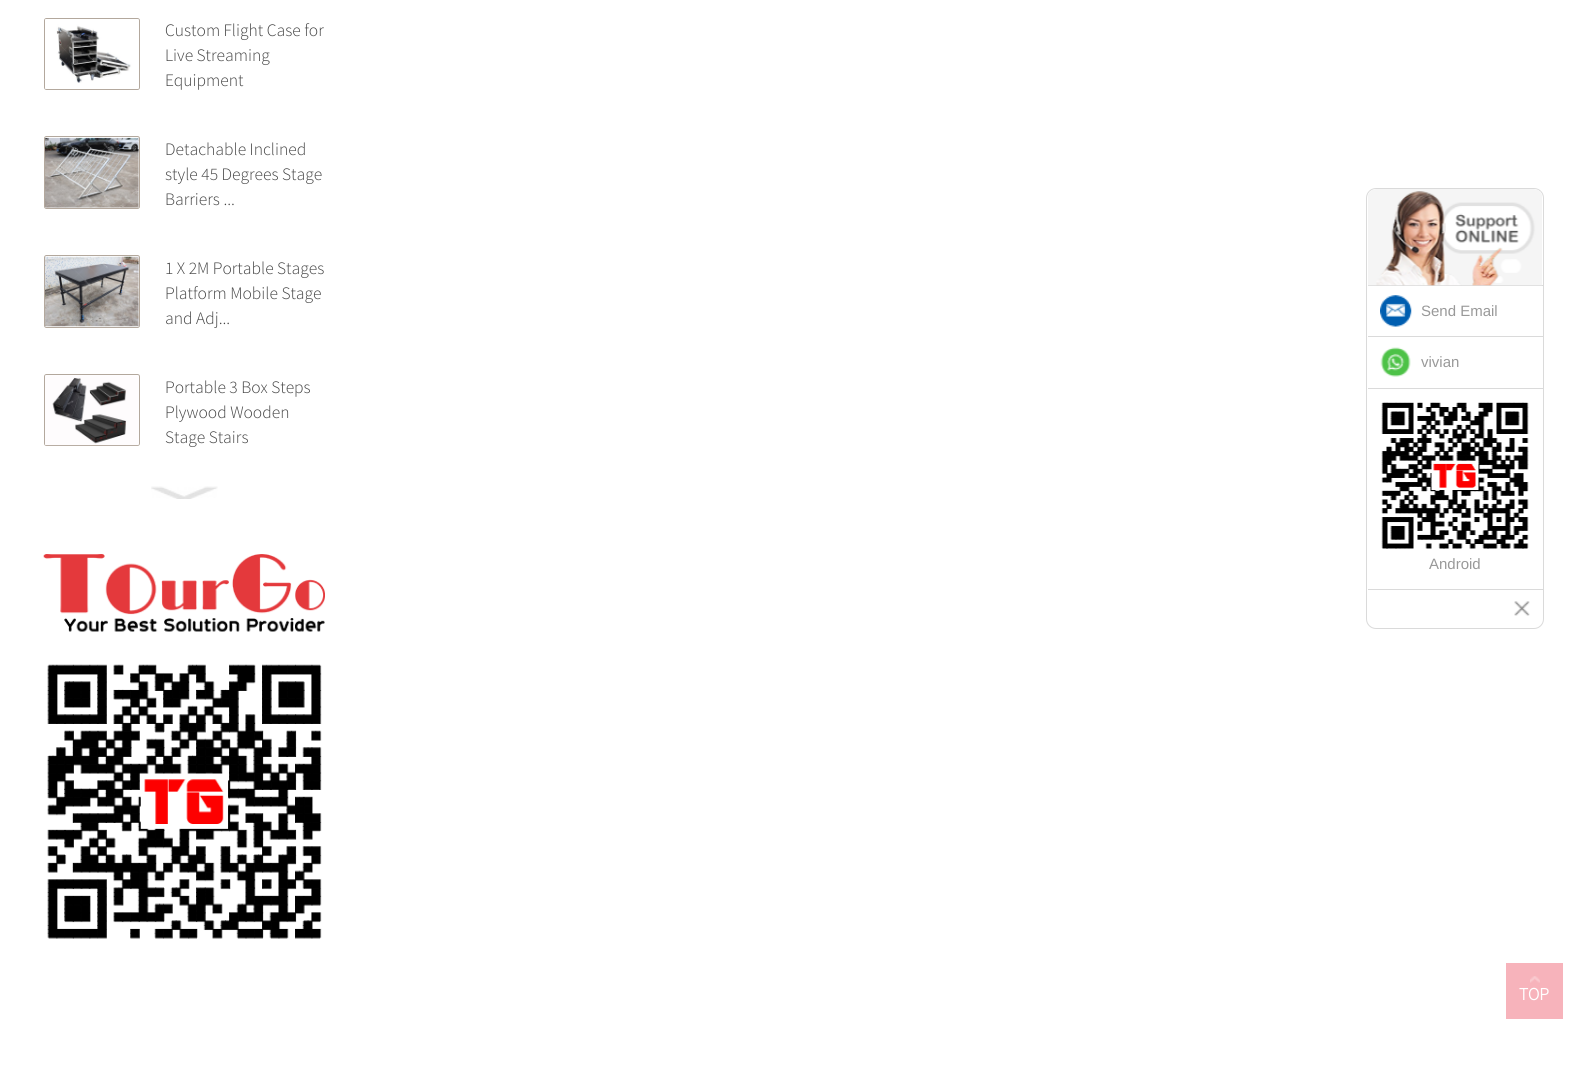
import math
import cairocffi as cairo

surface = cairo.ImageSurface(cairo.FORMAT_RGB24, 1587, 1068)
ctx = cairo.Context(surface)
options = cairo.FontOptions()
options.set_hint_metrics(cairo.HINT_METRICS_OFF)
options.set_hint_style(cairo.HINT_STYLE_NONE)
ctx.set_font_options(options)
ctx.set_miter_limit(4)


def rgb(r, g, b):
    ctx.set_source_rgb(r / 255, g / 255, b / 255)


def face(family, size, italic, bold):
    ctx.select_font_face(family, cairo.FONT_SLANT_ITALIC if italic else cairo.FONT_SLANT_NORMAL, cairo.FONT_WEIGHT_BOLD if bold else cairo.FONT_WEIGHT_NORMAL)
    ctx.set_font_size(size)


def label(x, y, s):
    ctx.move_to(x, y)
    ctx.show_text(s)


def rect(x, y, w, h):
    ctx.rectangle(x, y, w, h)
    ctx.fill()


def rrect(x, y, w, h, r):
    ctx.new_sub_path()
    for i, (u, v) in enumerate([(x + w - r, y + h - r), (x + r, y + h - r), (x + r, y + r), (x + w - r, y + r)]):
        ctx.arc(u, v, r, i * math.pi / 2, (i + 1) * math.pi / 2)
    ctx.close_path()


def image(path, x, y, w, h):
    ctx.save()
    ctx.set_source_surface(cairo.ImageSurface.create_from_png(path), x, y)
    ctx.rectangle(x, y, w, h)
    ctx.fill()
    ctx.restore()


rgb(255, 255, 255)
ctx.paint()
rrect(44.5, 18.5, 95, 71, 2)
rgb(179, 168, 157)
ctx.set_line_width(1)
ctx.stroke()
image('image0.png', 45, 19, 94, 70)
face('Source Sans Pro Light', 17.5, 0, 0)
rgb(68, 68, 68)
label(165, 36, 'Custom Flight Case for')
label(165, 61, 'Live Streaming')
label(165, 86, 'Equipment')
rrect(44.5, 136.5, 95, 72, 2)
rgb(179, 168, 157)
ctx.stroke()
image('image1.png', 45, 137, 94, 71)
rgb(68, 68, 68)
label(165, 155, 'Detachable Inclined')
label(165, 180, 'style 45 Degrees Stage')
label(165, 205, 'Barriers ...')
rrect(44.5, 255.5, 95, 72, 2)
rgb(179, 168, 157)
ctx.stroke()
image('image2.png', 45, 256, 94, 71)
rgb(68, 68, 68)
label(165, 274, '1 X 2M Portable Stages')
label(165, 299, 'Platform Mobile Stage')
label(165, 324, 'and Adj...')
rrect(44.5, 374.5, 95, 71, 2)
rgb(179, 168, 157)
ctx.stroke()
image('image3.png', 45, 375, 94, 71)
rgb(68, 68, 68)
label(165, 393, 'Portable 3 Box Steps')
label(165, 418, 'Plywood Wooden')
label(165, 443, 'Stage Stairs')
image('image4.png', 151, 486, 67, 13)
image('image5.png', 43, 554, 282, 78)
image('image6.png', 47, 664, 275, 275)
rrect(1366.5, 188.5, 177, 440, 9.5)
rgb(218, 218, 218)
ctx.stroke()
rect(1368, 285, 175, 1)
image('image7.png', 1368, 189, 174, 97)
rect(1368, 336, 175, 1)
image('image8.png', 1380, 295, 32, 32)
face('Liberation Sans', 15, 0, 0)
rgb(153, 153, 153)
label(1421, 316, 'Send Email')
rgb(218, 218, 218)
rect(1368, 388, 175, 1)
image('image9.png', 1380, 347, 31, 30)
rgb(153, 153, 153)
label(1421, 367, 'vivian')
rgb(218, 218, 218)
rect(1368, 589, 175, 1)
image('image10.png', 1381, 402, 148, 147)
rgb(153, 153, 153)
label(1429, 569, 'Android')
image('image11.png', 1514, 601, 16, 15)
rgb(247, 179, 187)
rect(1506, 963, 57, 56)
image('image12.png', 1530, 976, 10, 7)
face('Source Sans Pro', 17.5, 0, 1)
rgb(255, 255, 255)
label(1519, 1000, 'TOP')
surface.write_to_png('render.png')
